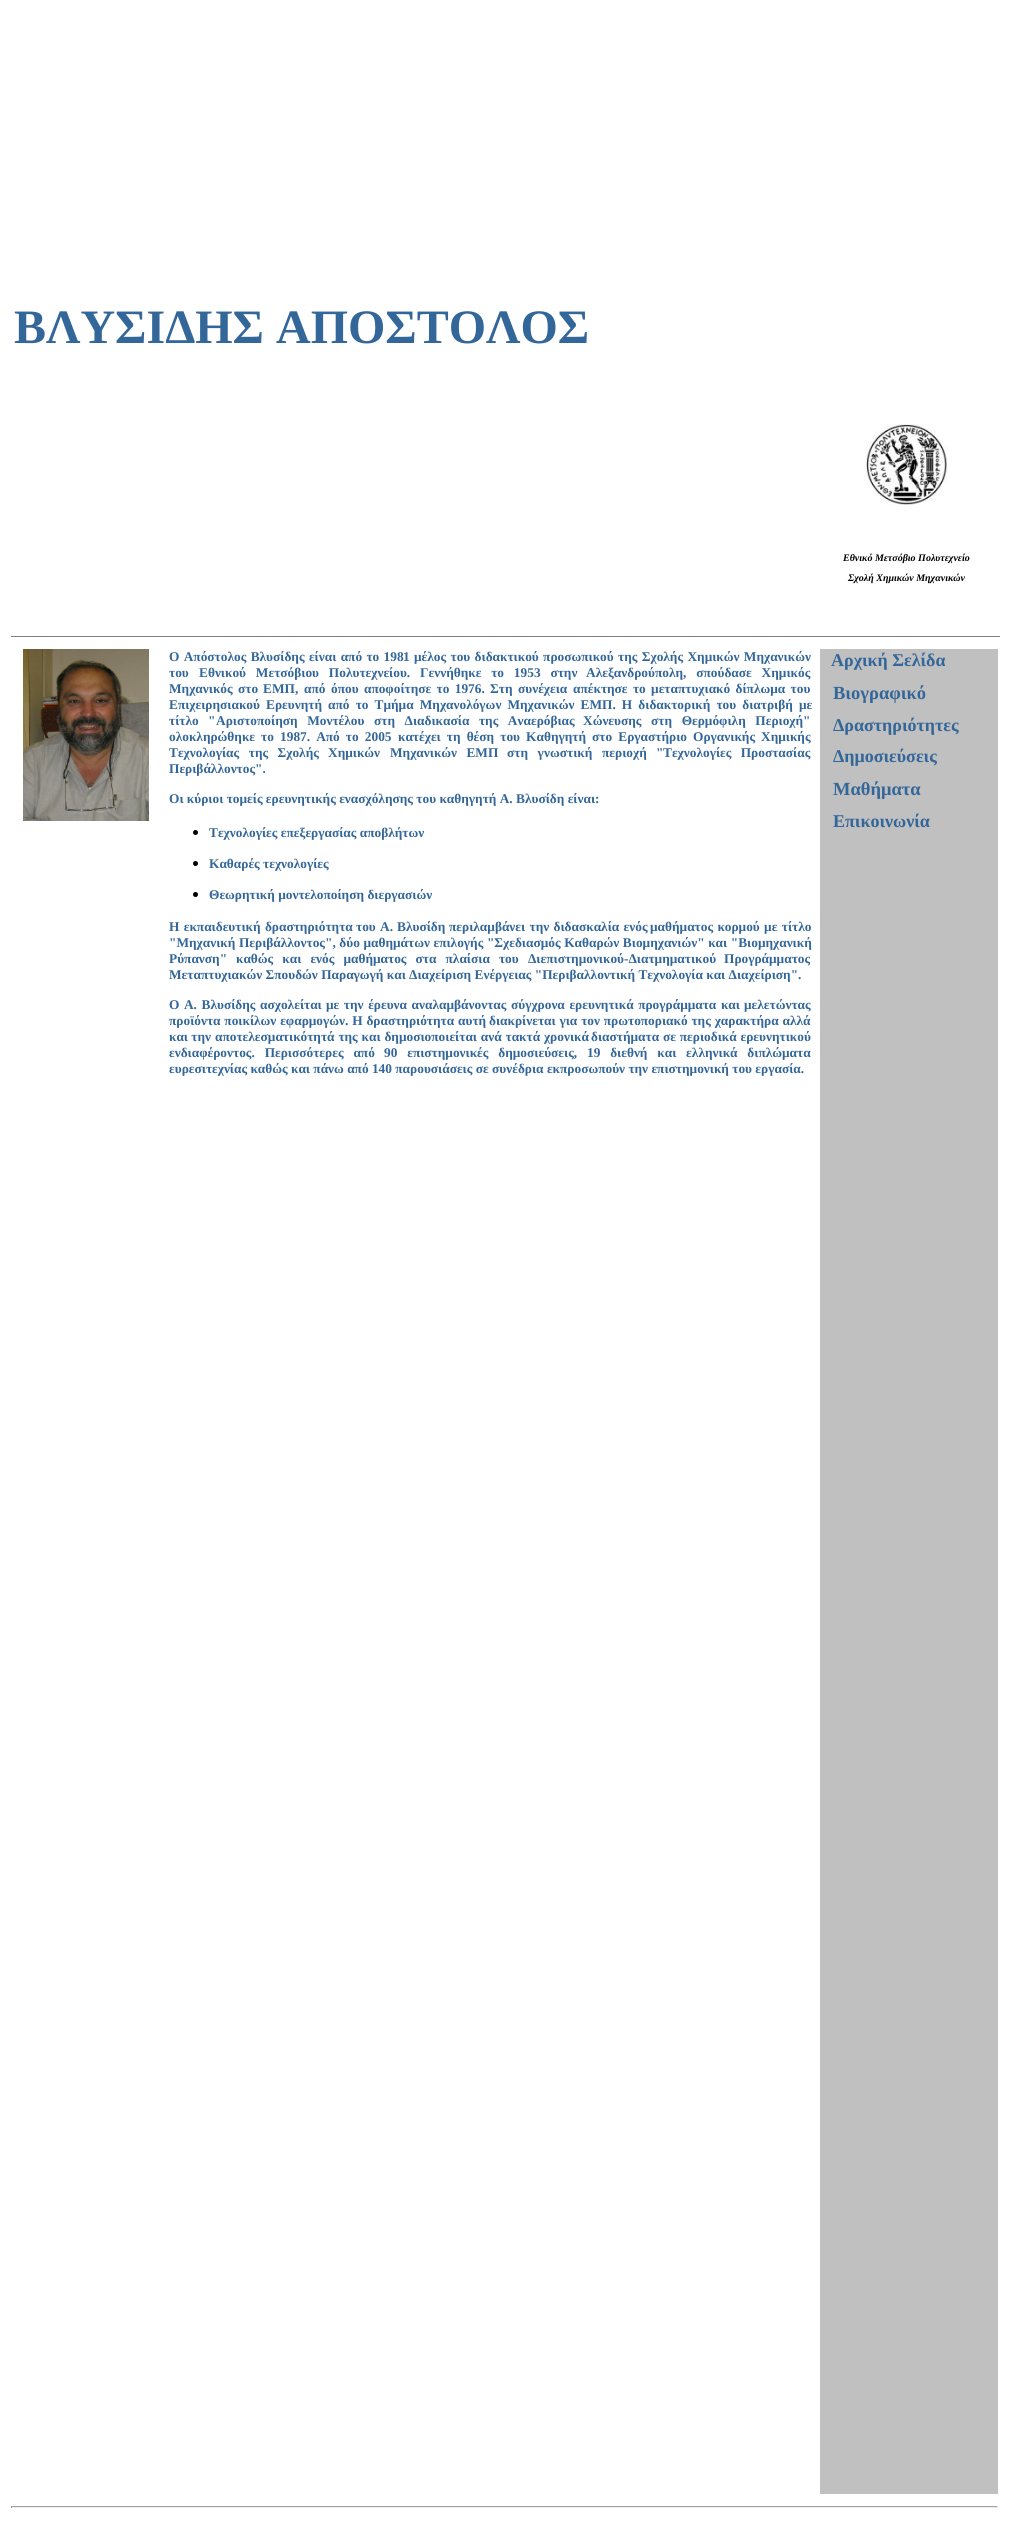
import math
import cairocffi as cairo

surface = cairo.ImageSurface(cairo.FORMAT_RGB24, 1009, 2542)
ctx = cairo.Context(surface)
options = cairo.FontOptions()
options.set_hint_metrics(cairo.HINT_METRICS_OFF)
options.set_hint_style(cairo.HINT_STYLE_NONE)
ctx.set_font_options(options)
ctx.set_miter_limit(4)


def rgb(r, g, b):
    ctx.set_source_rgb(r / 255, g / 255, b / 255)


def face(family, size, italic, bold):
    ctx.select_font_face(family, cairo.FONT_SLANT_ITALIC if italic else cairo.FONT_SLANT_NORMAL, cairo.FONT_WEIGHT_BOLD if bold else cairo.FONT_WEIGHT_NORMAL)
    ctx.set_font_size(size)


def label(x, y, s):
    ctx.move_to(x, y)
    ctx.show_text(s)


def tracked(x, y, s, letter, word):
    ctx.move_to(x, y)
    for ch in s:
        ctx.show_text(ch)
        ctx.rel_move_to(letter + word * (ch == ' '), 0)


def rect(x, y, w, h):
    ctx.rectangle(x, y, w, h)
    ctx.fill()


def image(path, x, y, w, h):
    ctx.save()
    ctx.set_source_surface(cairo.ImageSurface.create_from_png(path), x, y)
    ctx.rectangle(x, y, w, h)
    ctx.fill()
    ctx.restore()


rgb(255, 255, 255)
ctx.paint()
face('Liberation Serif', 48, 0, 1)
rgb(51, 102, 153)
label(14, 343, 'ΒΛΥΣΙΔΗΣ ΑΠΟΣΤΟΛΟΣ')
image('image0.png', 866, 424, 82, 81)
face('Liberation Serif', 10, 1, 1)
rgb(0, 0, 0)
label(843, 561, 'Εθνικό Μετσόβιο Πολυτεχνείο')
label(848, 581, 'Σχολή Χημικών Μηχανικών')
rgb(128, 128, 128)
rect(11, 636, 989, 1)
image('image1.png', 23, 649, 126, 172)
face('Liberation Serif', 13.35, 0, 1)
rgb(51, 102, 153)
tracked(169, 661, 'Ο Απόστολος Βλυσίδης είναι από το 198', 0, 1)
label(403, 661, '1')
tracked(414, 661, 'μέλος του διδακτικού προσωπικού της Σχολής Χημικών Μηχανικών', 0, 1)
label(169, 677, 'του')
tracked(199, 677, 'Εθνικού Μετσόβιου Πολυτεχνείου. Γεννήθηκε το 1953 στην', 0, 6.5)
tracked(586, 677, 'Αλεξανδρούπολη, σπούδασε Χημικός', 0, 6.5)
tracked(169, 693, 'Μηχανικός στο', 0, 2)
label(263, 693, 'ΕΜΠ,')
label(304, 693, 'από')
tracked(331, 693, 'όπου αποφοίτησε το 1976. Στη', 0, 2)
label(518, 693, 'συνέχεια')
tracked(573, 693, 'απέκτησε το μεταπτυχιακό δίπλωμα του', 0, 2)
tracked(169, 709, 'Επιχειρησιακού Ερευνητή από το Τμήμα Μηχανολόγων Μηχανικών ΕΜΠ. Η διδακτορική του διατριβή με', 0, 2.75)
label(169, 725, 'τίτλο')
label(208, 725, '"')
tracked(216, 725, 'Αριστοποίηση Μοντέλου στη Διαδικασία της Αναερόβιας', 0, 6.25)
tracked(583, 725, 'Χώνευσης στη Θερμόφιλη Περιοχή', 0, 6.25)
label(803, 725, '"')
tracked(169, 741, 'ολοκληρώθηκε το 1987. Από το 2005', 0, 2.75)
tracked(398, 741, 'κατέχει τη θέση του Καθηγητή στο Εργαστήριο Οργανικής', 0, 2.75)
label(761, 741, 'Χημικής')
tracked(169, 757, 'Τεχνολογίας τ', 0, 6.25)
tracked(255, 757, 'ης Σχολής', 0, 6)
label(328, 757, 'Χημικών')
tracked(390, 757, 'Μηχανικών ΕΜΠ', 0, 6)
tracked(507, 757, 'στη γ', 0, 6.25)
label(544, 757, 'νωστική')
label(602, 757, 'περιοχή')
label(656, 757, '"')
tracked(663, 757, 'Τεχνολογίες Προστασίας', 0, 6)
label(169, 773, 'Περιβάλλοντος".')
label(169, 803, 'Οι κύριοι τομείς ερευνητικής ενασχόλησης του καθηγητή Α. Βλυσίδη είναι:')
rgb(0, 0, 0)
ctx.new_path()
ctx.arc(195.5, 832.5, 2.5, 0, 2 * math.pi)
ctx.fill()
rgb(51, 102, 153)
label(209, 837, 'Τεχνολογίες επεξεργασίας αποβλήτων')
rgb(0, 0, 0)
ctx.new_path()
ctx.arc(195.5, 863.5, 2.5, 0, 2 * math.pi)
ctx.fill()
rgb(51, 102, 153)
label(209, 868, 'Καθαρές τεχνολογίες')
rgb(0, 0, 0)
ctx.new_path()
ctx.arc(195.5, 894.5, 2.5, 0, 2 * math.pi)
ctx.fill()
rgb(51, 102, 153)
label(209, 899, 'Θεωρητική μοντελοποίηση διεργασιών')
tracked(169, 931, 'Η εκπαιδευτική δραστηριότητα', 0, 1)
label(356, 931, 'του')
label(380, 931, 'Α.')
label(397, 931, 'Βλυσίδη')
tracked(449, 931, 'περιλαμβάνει την διδασκαλία ενός', 0, 1)
tracked(650, 931, 'μαθήματος κορμού με τίτλο', 0, 1)
tracked(169, 947, '"Μηχανική Περιβάλλοντος", δύο μαθημάτων επιλογής "Σχεδιασμός Καθαρών Βιομηχανιών" και "Βιομηχανική', 0, 0.25)
label(169, 963, 'Ρύπανση"')
tracked(236, 963, 'καθώς και ενός μαθήματος στα πλαίσια του', 0, 5.75)
label(528, 963, 'Διεπιστημονικού-Διατμηματικού')
label(724, 963, 'Προγράμματος')
label(169, 979, 'Μεταπτυχιακών Σπουδών Παραγωγή και Διαχείριση Ενέργειας "Περιβαλλοντική Τεχνολογία και Διαχείριση".')
tracked(169, 1009, 'Ο Α. Βλυσίδης ασχολείται', 0, 1.25)
tracked(326, 1009, 'με την έρευνα αναλαμβάνοντας σύγχρονα ερευνητικά προγράμματα και', 0, 1.25)
label(744, 1009, 'μελετώντας')
tracked(169, 1025, 'προϊόντα ποικίλων εφαρμογών. Η δραστηριότητα αυτή', 0, 0.5)
tracked(489, 1025, 'διακρίνεται για τον πρωτοποριακό της χαρακτήρα αλλά', 0, 0.5)
label(169, 1041, 'και την')
tracked(215, 1041, 'αποτελεσματικότητά της και δημοσιοποιείται ανά τακτά χρονικά', 0, 0.5)
tracked(591, 1041, 'διαστήματα σε περιοδικά ερευνητικού', 0, 0.5)
tracked(169, 1057, 'ενδιαφέροντος. Περισσότερες από', 0, 6.5)
tracked(384, 1057, '90 επιστημονικές δημοσιεύσεις, 19 διεθνή και ελληνικά διπλώματα', 0, 6.5)
label(169, 1073, 'ευρεσιτεχνίας καθώς και πάνω από 140 παρουσιάσεις σε συνέδρια εκπροσωπούν την επιστημονική του εργασία.')
rgb(192, 192, 192)
rect(820, 649, 178, 1845)
face('Liberation Serif', 18, 0, 1)
rgb(51, 102, 153)
label(831, 666, 'Αρχική Σελίδα')
face('Liberation Serif', 18.5, 0, 1)
label(833, 699, 'Βιογραφικό')
face('Liberation Serif', 18, 0, 1)
label(833, 731, 'Δραστηριότητες')
label(833, 762, 'Δημοσιεύσεις')
face('Liberation Serif', 18.5, 0, 1)
label(833, 795, 'Μαθήματα')
face('Liberation Serif', 18, 0, 1)
label(833, 827, 'Επικοινωνία')
rgb(159, 159, 159)
rect(11, 2506, 987, 1)
rgb(238, 238, 238)
rect(997, 2506, 1, 2)
rect(11, 2507, 987, 1)
rgb(159, 159, 159)
rect(11, 2506, 1, 2)
surface.write_to_png('render.png')
